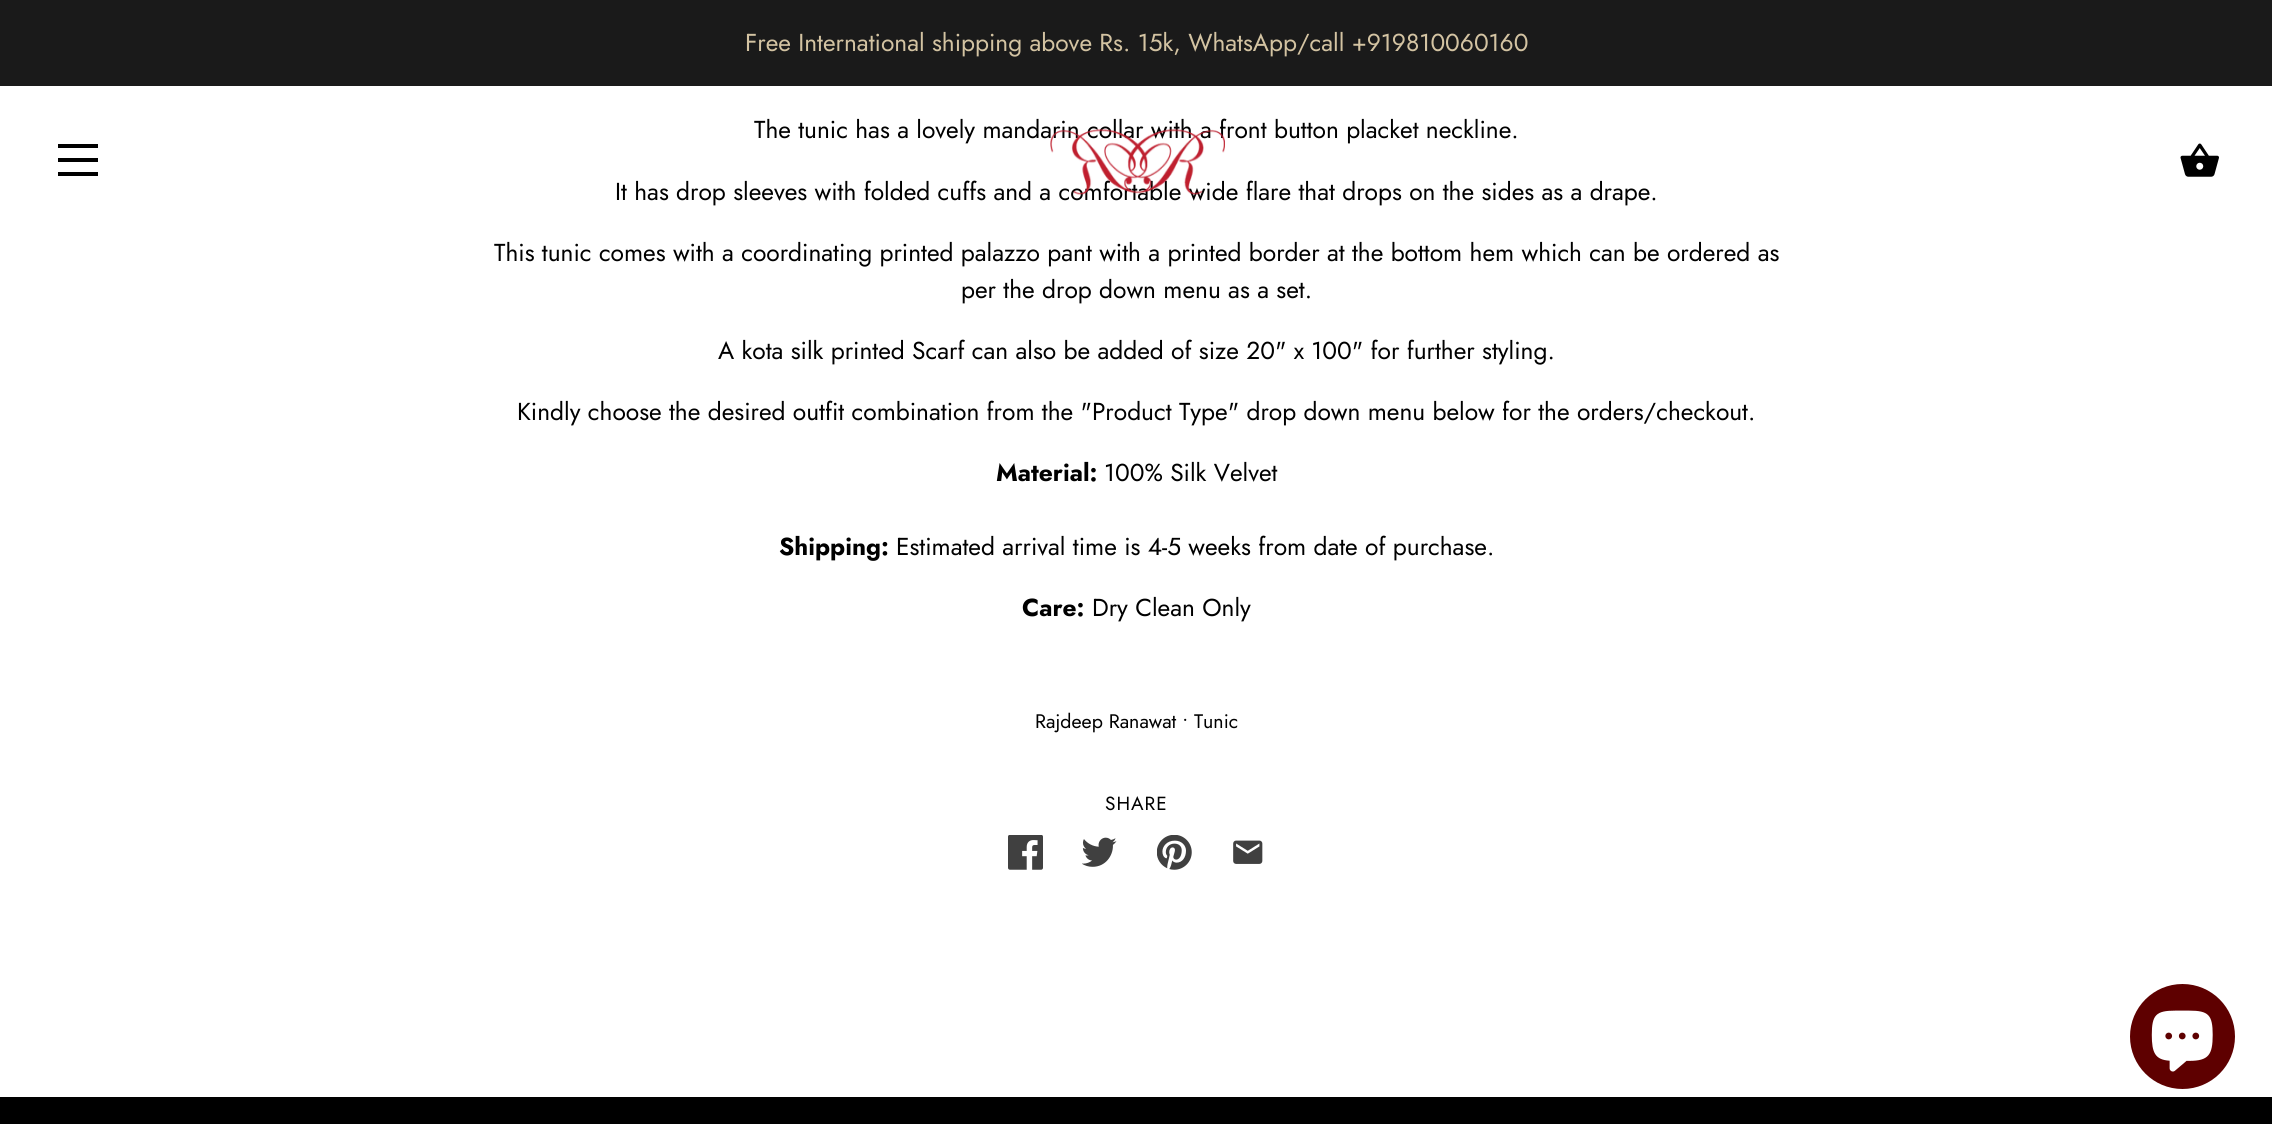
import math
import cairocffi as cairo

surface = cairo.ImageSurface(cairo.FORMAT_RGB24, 2272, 1124)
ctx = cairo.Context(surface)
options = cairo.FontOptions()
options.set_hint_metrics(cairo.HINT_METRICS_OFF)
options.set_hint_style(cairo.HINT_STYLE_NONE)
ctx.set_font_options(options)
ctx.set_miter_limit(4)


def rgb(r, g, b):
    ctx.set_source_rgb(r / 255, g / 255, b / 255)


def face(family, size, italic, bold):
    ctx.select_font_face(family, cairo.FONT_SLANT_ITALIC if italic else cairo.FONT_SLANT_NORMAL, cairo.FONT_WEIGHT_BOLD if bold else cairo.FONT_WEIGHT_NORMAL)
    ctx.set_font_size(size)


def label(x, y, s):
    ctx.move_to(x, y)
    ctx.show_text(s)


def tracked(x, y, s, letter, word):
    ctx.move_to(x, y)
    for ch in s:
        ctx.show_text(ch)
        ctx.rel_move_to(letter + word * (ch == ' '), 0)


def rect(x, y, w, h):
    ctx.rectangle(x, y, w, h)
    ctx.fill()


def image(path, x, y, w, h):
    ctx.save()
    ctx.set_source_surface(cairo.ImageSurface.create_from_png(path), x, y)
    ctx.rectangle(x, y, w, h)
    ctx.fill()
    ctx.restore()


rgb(255, 255, 255)
ctx.paint()
rgb(26, 26, 26)
rect(0, 0, 2272, 86)
face('Jost', 24.5, 0, 0)
rgb(211, 195, 162)
label(745, 51, 'Free International shipping above Rs. 15k, WhatsApp/call +919810060160')
rgb(0, 0, 0)
rect(58, 144, 40, 4)
rect(58, 158, 40, 4)
rect(58, 172, 40, 4)
label(754, 138, 'The tunic has a lovely mandarin collar with a front button placket neckline.')
label(615, 200, 'It has drop sleeves with folded cuffs and a comfortable wide flare that drops on the sides as a drape.')
image('image0.png', 1050, 129, 175, 66)
image('image1.png', 2180, 143, 39, 34)
label(494, 261, 'This tunic comes with a coordinating printed palazzo pant with a printed border at the bottom hem which can be ordered as')
label(961, 298, 'per the drop down menu as a set.')
label(718, 359, 'A kota silk printed Scarf can also be added of size 20" x 100" for further styling.')
label(517, 420, 'Kindly choose the desired outfit combination from the "Product Type" drop down menu below for the orders/checkout.')
face('Jost', 24.5, 0, 1)
label(996, 481, 'Material:')
face('Jost', 24.5, 0, 0)
label(1104, 481, '100% Silk Velvet')
face('Jost', 24.5, 0, 1)
label(779, 555, 'Shipping:')
face('Jost', 24.5, 0, 0)
label(896, 555, 'Estimated arrival time is 4-5 weeks from date of purchase.')
face('Jost', 24.5, 0, 1)
label(1022, 616, 'Care:')
face('Jost', 24.5, 0, 0)
label(1092, 616, 'Dry Clean Only')
face('Jost', 19.6, 0, 0)
label(1035, 728, 'Rajdeep Ranawat • Tunic')
face('Jost', 19, 0, 0)
tracked(1105, 810, 'SHARE', 1, 0)
image('image2.png', 1008, 835, 35, 35)
image('image3.png', 1082, 837, 35, 30)
image('image4.png', 1157, 835, 35, 35)
image('image5.png', 1233, 840, 30, 24)
rgb(94, 0, 0)
ctx.arc(2182.5, 1036.5, 52.5, 0, 2 * math.pi)
ctx.fill()
image('image6.png', 2151, 1010, 62, 62)
rgb(0, 0, 0)
rect(0, 1097, 2272, 27)
surface.write_to_png('render.png')
